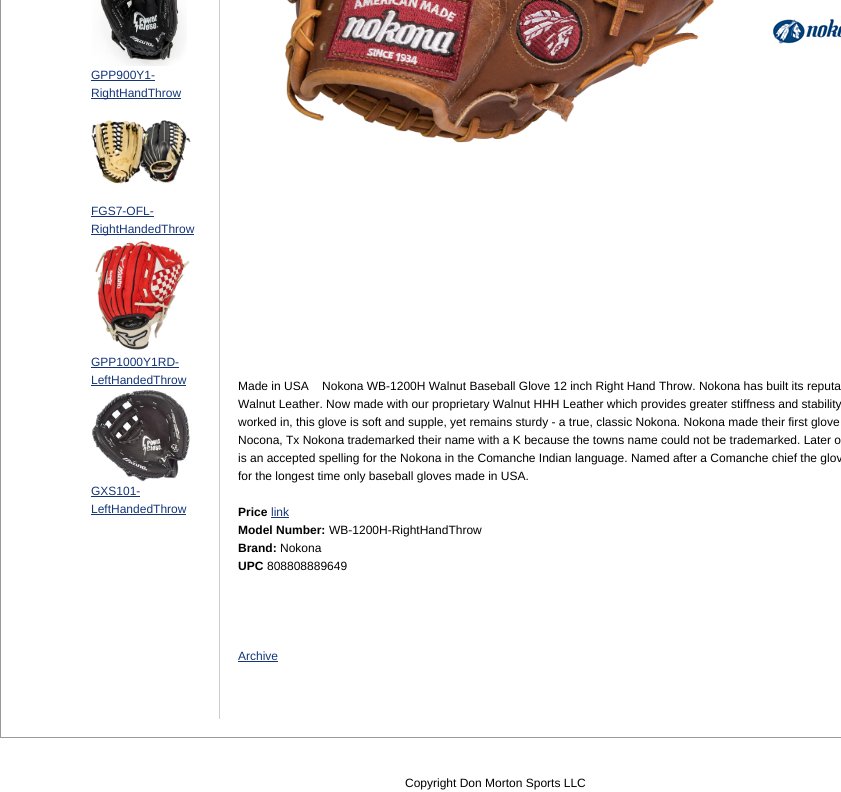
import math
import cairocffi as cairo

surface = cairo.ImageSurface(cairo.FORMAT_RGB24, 841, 792)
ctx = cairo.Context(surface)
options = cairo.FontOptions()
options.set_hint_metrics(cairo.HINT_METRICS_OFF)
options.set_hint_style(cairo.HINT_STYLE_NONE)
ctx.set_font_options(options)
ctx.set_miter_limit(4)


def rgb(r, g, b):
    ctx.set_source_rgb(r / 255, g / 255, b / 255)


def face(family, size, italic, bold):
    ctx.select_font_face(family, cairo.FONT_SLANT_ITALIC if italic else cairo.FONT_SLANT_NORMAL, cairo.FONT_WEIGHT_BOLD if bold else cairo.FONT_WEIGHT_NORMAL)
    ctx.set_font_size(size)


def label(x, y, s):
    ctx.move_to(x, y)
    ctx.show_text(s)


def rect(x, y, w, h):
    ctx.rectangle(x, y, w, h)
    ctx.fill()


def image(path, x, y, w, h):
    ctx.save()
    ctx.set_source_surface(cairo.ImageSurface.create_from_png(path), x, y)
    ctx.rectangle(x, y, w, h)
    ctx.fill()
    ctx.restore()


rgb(255, 255, 255)
ctx.paint()
ctx.rectangle(0.5, -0.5, 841, 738)
rgb(153, 153, 153)
ctx.set_line_width(1)
ctx.stroke()
image('image0.png', 92, 0, 95, 66)
face('Liberation Sans', 12, 0, 0)
rgb(20, 53, 120)
label(91, 79, 'GPP900Y1-')
rect(91, 80, 64, 1)
rect(91, 98, 90, 1)
label(91, 97, 'RightHandThrow')
image('image1.png', 91, 120, 100, 64)
label(91, 215, 'FGS7-OFL-')
rect(91, 216, 63, 1)
rect(91, 234, 103, 1)
label(91, 233, 'RightHandedThrow')
image('image2.png', 95, 241, 95, 109)
label(91, 366, 'GPP1000Y1RD-')
rect(91, 367, 88, 1)
label(91, 384, 'LeftHandedThrow')
rect(91, 385, 95, 1)
image('image3.png', 92, 389, 98, 93)
label(91, 495, 'GXS101-')
rect(91, 496, 49, 1)
label(91, 513, 'LeftHandedThrow')
rect(91, 514, 95, 1)
rgb(204, 204, 204)
rect(219, 0, 1, 719)
image('image4.png', 285, 0, 429, 143)
image('image5.png', 773, 19, 68, 25)
rgb(0, 0, 0)
label(238, 390, 'Made in USA    Nokona WB-1200H Walnut Baseball Glove 12 inch Right Hand Throw. Nokona has built its reputa')
label(238, 408, 'Walnut Leather. Now made with our proprietary Walnut HHH Leather which provides greater stiffness and stability')
label(238, 426, 'worked in, this glove is soft and supple, yet remains sturdy - a true, classic Nokona. Nokona made their first glove')
label(238, 444, 'Nocona, Tx Nokona trademarked their name with a K because the towns name could not be trademarked. Later o')
label(238, 462, 'is an accepted spelling for the Nokona in the Comanche Indian language. Named after a Comanche chief the glov')
label(238, 480, 'for the longest time only baseball gloves made in USA.')
face('Liberation Sans', 12, 0, 1)
label(238, 516, 'Price')
face('Liberation Sans', 12, 0, 0)
rgb(20, 53, 120)
label(271, 516, 'link')
rect(271, 517, 18, 1)
face('Liberation Sans', 12, 0, 1)
rgb(0, 0, 0)
label(238, 534, 'Model Number:')
face('Liberation Sans', 12, 0, 0)
label(329, 534, 'WB-1200H-RightHandThrow')
face('Liberation Sans', 12, 0, 1)
label(238, 552, 'Brand:')
face('Liberation Sans', 12, 0, 0)
label(280, 552, 'Nokona')
face('Liberation Sans', 12, 0, 1)
label(238, 570, 'UPC')
face('Liberation Sans', 12, 0, 0)
label(267, 570, '808808889649')
rgb(20, 53, 120)
label(238, 660, 'Archive')
rect(238, 661, 40, 1)
rgb(0, 0, 0)
label(405, 787, 'Copyright Don Morton Sports LLC')
surface.write_to_png('render.png')
